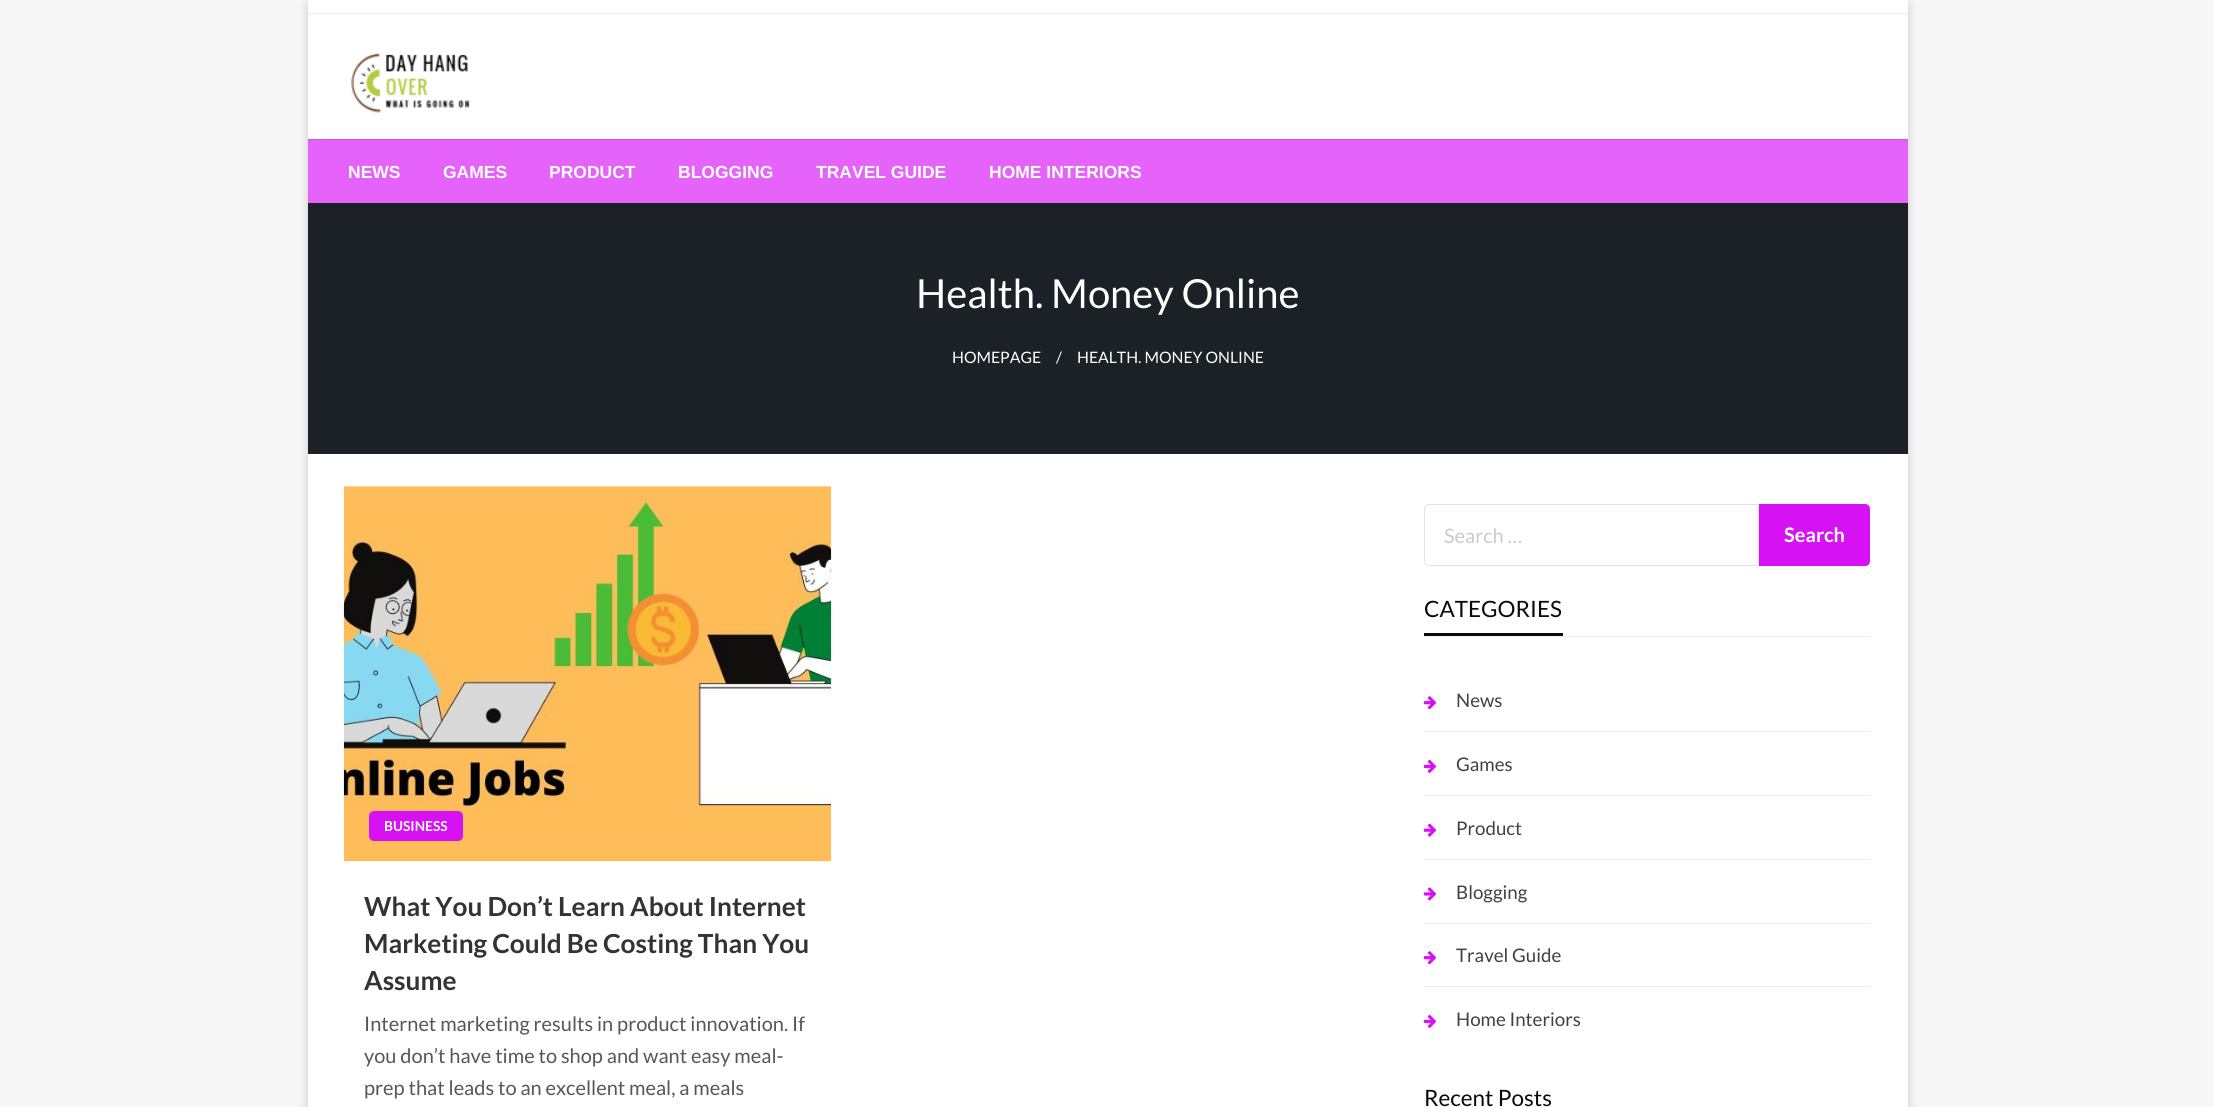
import math
import cairocffi as cairo

surface = cairo.ImageSurface(cairo.FORMAT_RGB24, 2214, 1107)
ctx = cairo.Context(surface)
options = cairo.FontOptions()
options.set_hint_metrics(cairo.HINT_METRICS_OFF)
options.set_hint_style(cairo.HINT_STYLE_NONE)
ctx.set_font_options(options)
ctx.set_miter_limit(4)


def rgb(r, g, b):
    ctx.set_source_rgb(r / 255, g / 255, b / 255)


def face(family, size, italic, bold):
    ctx.select_font_face(family, cairo.FONT_SLANT_ITALIC if italic else cairo.FONT_SLANT_NORMAL, cairo.FONT_WEIGHT_BOLD if bold else cairo.FONT_WEIGHT_NORMAL)
    ctx.set_font_size(size)


def label(x, y, s):
    ctx.move_to(x, y)
    ctx.show_text(s)


def rect(x, y, w, h):
    ctx.rectangle(x, y, w, h)
    ctx.fill()


def rrect(x, y, w, h, r):
    ctx.new_sub_path()
    for i, (u, v) in enumerate([(x + w - r, y + h - r), (x + r, y + h - r), (x + r, y + r), (x + w - r, y + r)]):
        ctx.arc(u, v, r, i * math.pi / 2, (i + 1) * math.pi / 2)
    ctx.close_path()


def soft_shadow(x, y, w, h, r, blur, alpha):
    ctx.push_group_with_content(cairo.CONTENT_ALPHA)
    ctx.set_operator(cairo.OPERATOR_SOURCE)
    for i in range(15, -16, -2):
        e = blur * i / 6
        if min(w, h) + 2 * e > 0:
            ctx.set_source_rgba(0, 0, 0, alpha * math.erfc((i - 1) / 8.5) / 2)
            rrect(x - e, y - e, w + 2 * e, h + 2 * e, max(0, min(r + e + blur * .6, min(w, h) / 2 + e)))
            ctx.fill()
    ctx.mask(ctx.pop_group())


def image(path, x, y, w, h):
    ctx.save()
    ctx.set_source_surface(cairo.ImageSurface.create_from_png(path), x, y)
    ctx.rectangle(x, y, w, h)
    ctx.fill()
    ctx.restore()


rgb(247, 247, 247)
ctx.paint()
rgb(0, 0, 0)
soft_shadow(308, 4, 1600, 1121, 0, 6, 0.09)
soft_shadow(308, 5, 1600, 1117, 0, 5, 0.1)
rgb(255, 255, 255)
rect(308, 0, 1600, 13)
rgb(236, 237, 231)
rect(308, 13, 1600, 1)
rgb(255, 255, 255)
rect(308, 14, 1600, 125)
image('image0.png', 351, 53, 119, 60)
rgb(230, 99, 251)
rect(308, 140, 1600, 63)
rgb(202, 87, 221)
rect(308, 139, 1600, 1)
face('Liberation Sans', 17.5, 0, 1)
rgb(255, 255, 255)
label(348, 178, 'NEWS')
label(443, 178, 'GAMES')
label(549, 178, 'PRODUCT')
label(678, 178, 'BLOGGING')
label(816, 178, 'TRAVEL GUIDE')
label(989, 178, 'HOME INTERIORS')
rect(308, 454, 1600, 653)
rgb(28, 33, 39)
rect(308, 203, 1600, 251)
face('Lato', 40, 0, 0)
rgb(255, 255, 255)
label(916, 308, 'Health. Money Online')
face('Lato', 15.75, 0, 0)
label(952, 363, 'HOMEPAGE')
label(1056, 363, '/')
label(1077, 363, 'HEALTH. MONEY ONLINE')
image('image1.png', 343, 486, 489, 376)
rgb(214, 18, 245)
rrect(369, 811, 94, 30, 5)
ctx.fill()
face('Lato', 13.75, 0, 1)
rgb(255, 255, 255)
label(384, 831, 'BUSINESS')
face('Lato', 26.25, 0, 1)
rgb(51, 51, 51)
label(364, 916, 'What You Don’t Learn About Internet')
label(364, 953, 'Marketing Could Be Costing Than You')
label(364, 990, 'Assume')
face('Lato', 20, 0, 0)
rgb(86, 86, 86)
label(364, 1031, 'Internet marketing results in product innovation. If')
label(364, 1063, 'you don’t have time to shop and want easy meal-')
label(364, 1095, 'prep that leads to an excellent meal, a meals')
ctx.new_path()
ctx.move_to(1429, 504.5)
ctx.line_to(1758.5, 504.5)
ctx.line_to(1758.5, 565.5)
ctx.line_to(1429, 565.5)
ctx.curve_to(1426.5, 565.5, 1424.5, 563.5, 1424.5, 561)
ctx.line_to(1424.5, 509)
ctx.curve_to(1424.5, 506.5, 1426.5, 504.5, 1429, 504.5)
ctx.close_path()
rgb(228, 227, 227)
ctx.set_line_width(1)
ctx.stroke()
rgb(202, 202, 202)
label(1444, 543, 'Search …')
rgb(214, 18, 245)
ctx.new_path()
ctx.move_to(1759, 504)
ctx.line_to(1865, 504)
ctx.curve_to(1868, 504, 1870, 506, 1870, 509)
ctx.line_to(1870, 561)
ctx.curve_to(1870, 564, 1868, 566, 1865, 566)
ctx.line_to(1759, 566)
ctx.close_path()
ctx.fill()
face('Lato', 20, 0, 1)
rgb(255, 255, 255)
label(1784, 542, 'Search')
rgb(239, 239, 239)
rect(1424, 636, 446, 1)
rgb(10, 10, 10)
rect(1424, 633, 139, 3)
face('Lato', 22.5, 0, 0)
label(1424, 617, 'CATEGORIES')
rgb(238, 238, 238)
rect(1424, 731, 446, 1)
image('image2.png', 1423, 696, 14, 14)
face('Lato', 18.75, 0, 0)
rgb(65, 65, 65)
label(1456, 707, 'News')
rgb(238, 238, 238)
rect(1424, 795, 446, 1)
image('image3.png', 1423, 759, 14, 14)
rgb(65, 65, 65)
label(1456, 771, 'Games')
rgb(238, 238, 238)
rect(1424, 859, 446, 1)
image('image4.png', 1423, 823, 14, 14)
rgb(65, 65, 65)
label(1456, 835, 'Product')
rgb(238, 238, 238)
rect(1424, 923, 446, 1)
image('image5.png', 1423, 887, 13, 14)
rgb(65, 65, 65)
label(1456, 899, 'Blogging')
rgb(238, 238, 238)
rect(1424, 986, 446, 1)
image('image2.png', 1423, 951, 14, 14)
rgb(65, 65, 65)
label(1456, 962, 'Travel Guide')
image('image3.png', 1423, 1014, 14, 14)
label(1456, 1026, 'Home Interiors')
face('Lato', 22.5, 0, 0)
rgb(10, 10, 10)
label(1424, 1106, 'Recent Posts')
surface.write_to_png('render.png')
